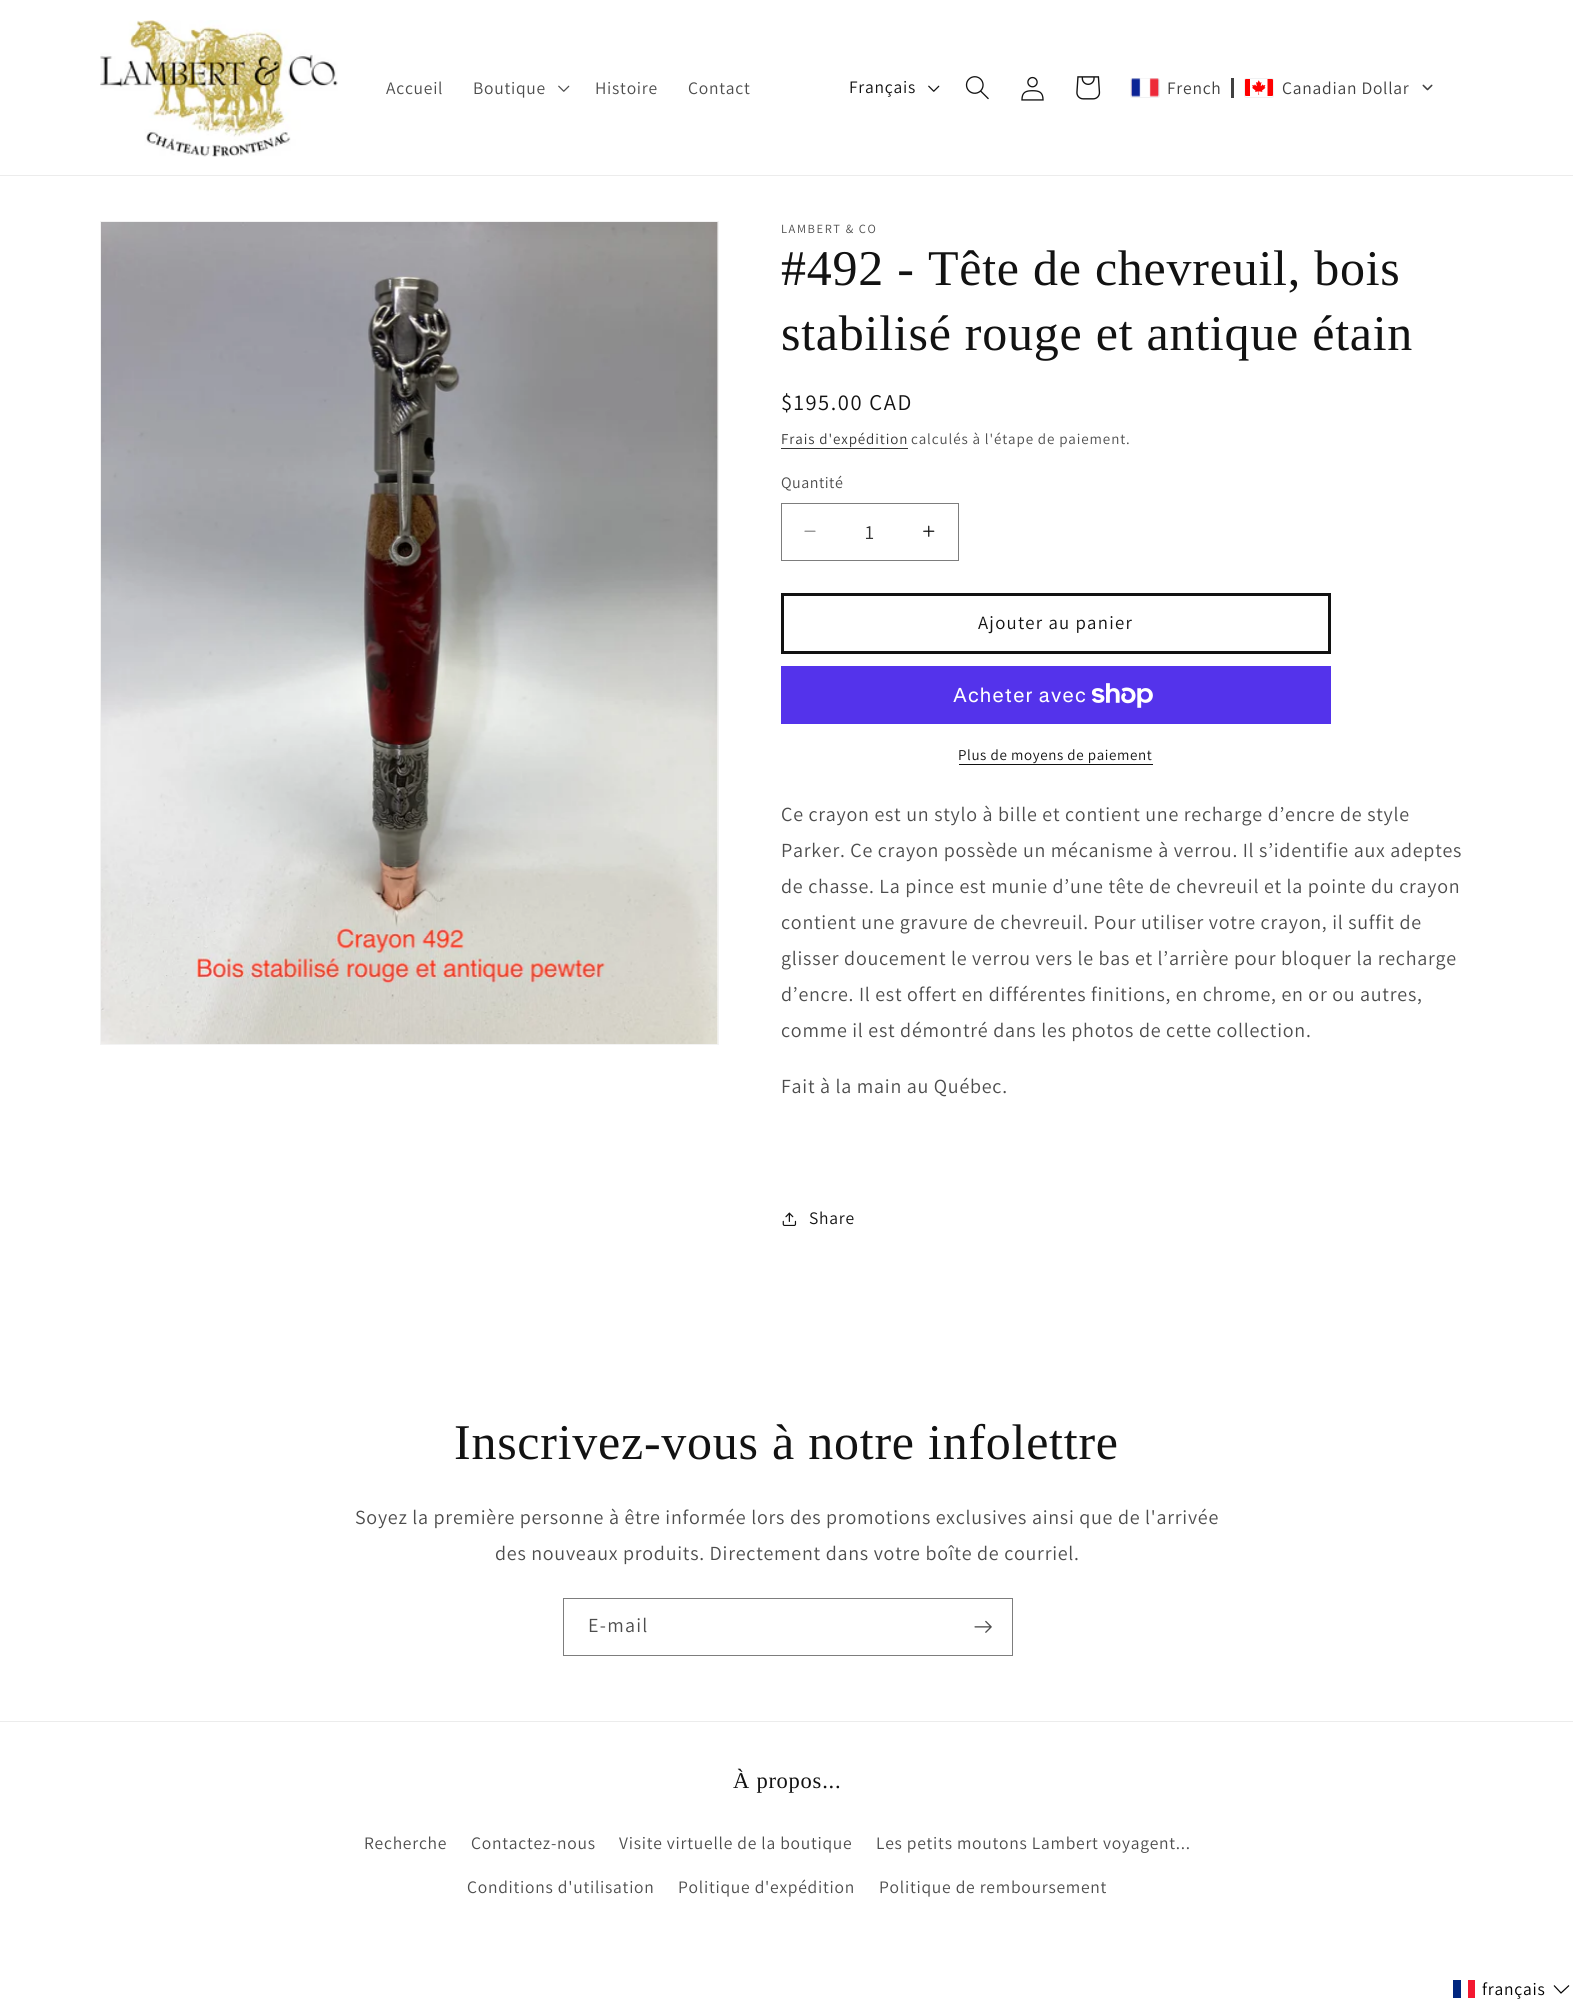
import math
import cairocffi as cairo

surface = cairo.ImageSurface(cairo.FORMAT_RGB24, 1573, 2005)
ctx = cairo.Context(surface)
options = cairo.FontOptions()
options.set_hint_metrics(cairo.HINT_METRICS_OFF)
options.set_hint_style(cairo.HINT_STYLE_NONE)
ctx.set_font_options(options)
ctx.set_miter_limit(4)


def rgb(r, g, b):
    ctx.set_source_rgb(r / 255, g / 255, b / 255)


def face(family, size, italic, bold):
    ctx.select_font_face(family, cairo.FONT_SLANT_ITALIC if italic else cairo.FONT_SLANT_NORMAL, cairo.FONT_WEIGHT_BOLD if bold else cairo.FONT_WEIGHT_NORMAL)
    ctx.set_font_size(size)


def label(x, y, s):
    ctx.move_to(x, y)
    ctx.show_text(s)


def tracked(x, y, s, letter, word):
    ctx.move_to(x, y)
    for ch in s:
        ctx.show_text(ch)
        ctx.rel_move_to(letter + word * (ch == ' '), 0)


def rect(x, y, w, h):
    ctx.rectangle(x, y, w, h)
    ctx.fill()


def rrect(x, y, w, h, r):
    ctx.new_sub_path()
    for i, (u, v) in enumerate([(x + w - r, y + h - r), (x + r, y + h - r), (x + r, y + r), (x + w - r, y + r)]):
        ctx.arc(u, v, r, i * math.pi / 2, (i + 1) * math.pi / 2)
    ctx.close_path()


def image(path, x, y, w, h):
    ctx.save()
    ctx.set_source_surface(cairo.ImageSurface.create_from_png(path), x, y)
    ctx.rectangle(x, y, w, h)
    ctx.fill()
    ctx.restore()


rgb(255, 255, 255)
ctx.paint()
rgb(236, 236, 236)
rect(0, 175, 1573, 1)
image('image0.png', 100, 20, 238, 137)
face('Assistant', 17.5, 0, 0)
rgb(77, 77, 77)
tracked(386, 94, 'Accueil', 0.75, 0)
tracked(473, 94, 'Boutique', 0.75, 0)
image('image1.png', 558, 85, 12, 7)
tracked(595, 94, 'Histoire', 0.75, 0)
tracked(688, 94, 'Contact', 0.75, 0)
rgb(18, 18, 18)
tracked(849, 93, 'Français', 0.75, 0)
image('image2.png', 928, 85, 12, 7)
image('image3.png', 965, 76, 24, 24)
image('image4.png', 1021, 76, 23, 25)
image('image5.png', 1076, 76, 25, 24)
rrect(1130.5, 78.5, 29, 19, 2)
rgb(240, 241, 242)
ctx.set_line_width(1)
ctx.stroke()
image('image6.png', 1131, 78, 28, 19)
rgb(64, 64, 64)
tracked(1167, 94, 'French', 0.75, 0)
rect(1231, 78, 3, 20)
rrect(1244.5, 78.5, 29, 19, 2)
rgb(240, 241, 242)
ctx.stroke()
image('image7.png', 1245, 79, 28, 17)
rgb(64, 64, 64)
tracked(1282, 94, 'Canadian Dollar', 0.75, 0)
image('image8.png', 1422, 84, 11, 7)
ctx.rectangle(100.5, 221.5, 618, 823)
rgb(243, 243, 243)
ctx.stroke()
image('image9.png', 101, 222, 617, 822)
face('Assistant', 12.5, 0, 0)
rgb(77, 77, 77)
tracked(781, 233, 'LAMBERT & CO', 1.6, 0)
face('Liberation Serif', 50, 0, 0)
rgb(18, 18, 18)
tracked(781, 285, '#492 - Tête de chevreuil, bois', 0.75, 0)
tracked(781, 350, 'stabilisé rouge et antique étain', 0.75, 0)
face('Assistant', 22.5, 0, 0)
tracked(781, 410, '$195.00 CAD', 1.6, 0)
face('Assistant', 15, 0, 0)
rgb(54, 54, 54)
tracked(781, 444, 'Frais d\'expédition', 0.9, 0)
rect(781, 448, 127, 1)
rgb(77, 77, 77)
tracked(911, 444, 'calculés à l\'étape de paiement.', 0.9, 0)
face('Assistant', 16, 0, 0)
tracked(781, 488, 'Quantité', 0.5, 0)
image('image10.png', 804, 530, 12, 2)
image('image11.png', 923, 525, 12, 12)
ctx.rectangle(781.5, 503.5, 177, 57)
rgb(125, 125, 125)
ctx.stroke()
face('Assistant', 20, 0, 0)
rgb(54, 54, 54)
label(865, 539, '1')
ctx.rectangle(782.5, 594.5, 547, 58)
rgb(18, 18, 18)
ctx.set_line_width(3)
ctx.stroke()
face('Assistant', 18.75, 0, 0)
tracked(978, 629, 'Ajouter au panier', 1.25, 0)
rgb(84, 51, 235)
rect(781, 666, 550, 58)
face('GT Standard', 20, 0, 0)
rgb(255, 255, 255)
tracked(953, 702, 'Acheter avec', 0.75, 0)
image('image12.png', 1091, 683, 62, 25)
face('Assistant', 15, 0, 0)
rgb(18, 18, 18)
tracked(958, 760, 'Plus de moyens de paiement', 0.6, 0)
rect(959, 764, 194, 1)
face('Assistant', 20, 0, 0)
rgb(77, 77, 77)
tracked(781, 821, 'Ce crayon est un stylo à bille et contient une recharge d’encre de style', 0.75, 0)
tracked(781, 857, 'Parker. Ce crayon possède un mécanisme à verrou. Il s’identifie aux adeptes', 0.75, 0)
tracked(781, 893, 'de chasse. La pince est munie d’une tête de chevreuil et la pointe du crayon', 0.75, 0)
tracked(781, 929, 'contient une gravure de chevreuil. Pour utiliser votre crayon, il suffit de', 0.75, 0)
tracked(781, 965, 'glisser doucement le verrou vers le bas et l’arrière pour bloquer la recharge', 0.75, 0)
tracked(781, 1001, 'd’encre. Il est offert en différentes finitions, en chrome, en or ou autres,', 0.75, 0)
tracked(781, 1037, 'comme il est démontré dans les photos de cette collection.', 0.75, 0)
tracked(781, 1093, 'Fait à la main au Québec.', 0.75, 0)
image('image13.png', 782, 1212, 15, 14)
face('Assistant', 17.5, 0, 0)
rgb(18, 18, 18)
tracked(809, 1224, 'Share', 0.75, 0)
face('Liberation Serif', 50, 0, 0)
tracked(454, 1459, 'Inscrivez-vous à notre infolettre', 0.75, 0)
face('Assistant', 20, 0, 0)
rgb(77, 77, 77)
tracked(355, 1524, 'Soyez la première personne à être informée lors des promotions exclusives ainsi que de l\'arrivée', 0.75, 0)
tracked(495, 1560, 'des nouveaux produits. Directement dans votre boîte de courriel.', 0.75, 0)
ctx.rectangle(563.5, 1598.5, 449, 57)
rgb(125, 125, 125)
ctx.set_line_width(1)
ctx.stroke()
rgb(77, 77, 77)
tracked(588, 1632, 'E-mail', 1.25, 0)
image('image14.png', 974, 1620, 18, 13)
rgb(236, 236, 236)
rect(0, 1721, 1573, 1)
face('Liberation Serif', 22.5, 0, 0)
rgb(18, 18, 18)
tracked(733, 1788, 'À propos...', 0.75, 0)
face('Assistant', 17.5, 0, 0)
rgb(77, 77, 77)
tracked(364, 1849, 'Recherche', 0.75, 0)
tracked(471, 1849, 'Contactez-nous', 0.75, 0)
tracked(619, 1849, 'Visite virtuelle de la boutique', 0.75, 0)
tracked(876, 1849, 'Les petits moutons Lambert voyagent...', 0.75, 0)
tracked(467, 1893, 'Conditions d\'utilisation', 0.75, 0)
tracked(678, 1893, 'Politique d\'expédition', 0.75, 0)
tracked(879, 1893, 'Politique de remboursement', 0.75, 0)
rgb(0, 38, 127)
rect(1453, 1980, 8, 18)
rgb(243, 24, 48)
rect(1468, 1980, 7, 18)
rgb(0, 0, 0)
tracked(1482, 1995, 'français', 0.75, 0)
ctx.new_path()
ctx.move_to(1554, 1985.5)
ctx.line_to(1561, 1993)
ctx.line_to(1569, 1985.5)
ctx.set_line_width(1.2)
ctx.stroke()
surface.write_to_png('render.png')
